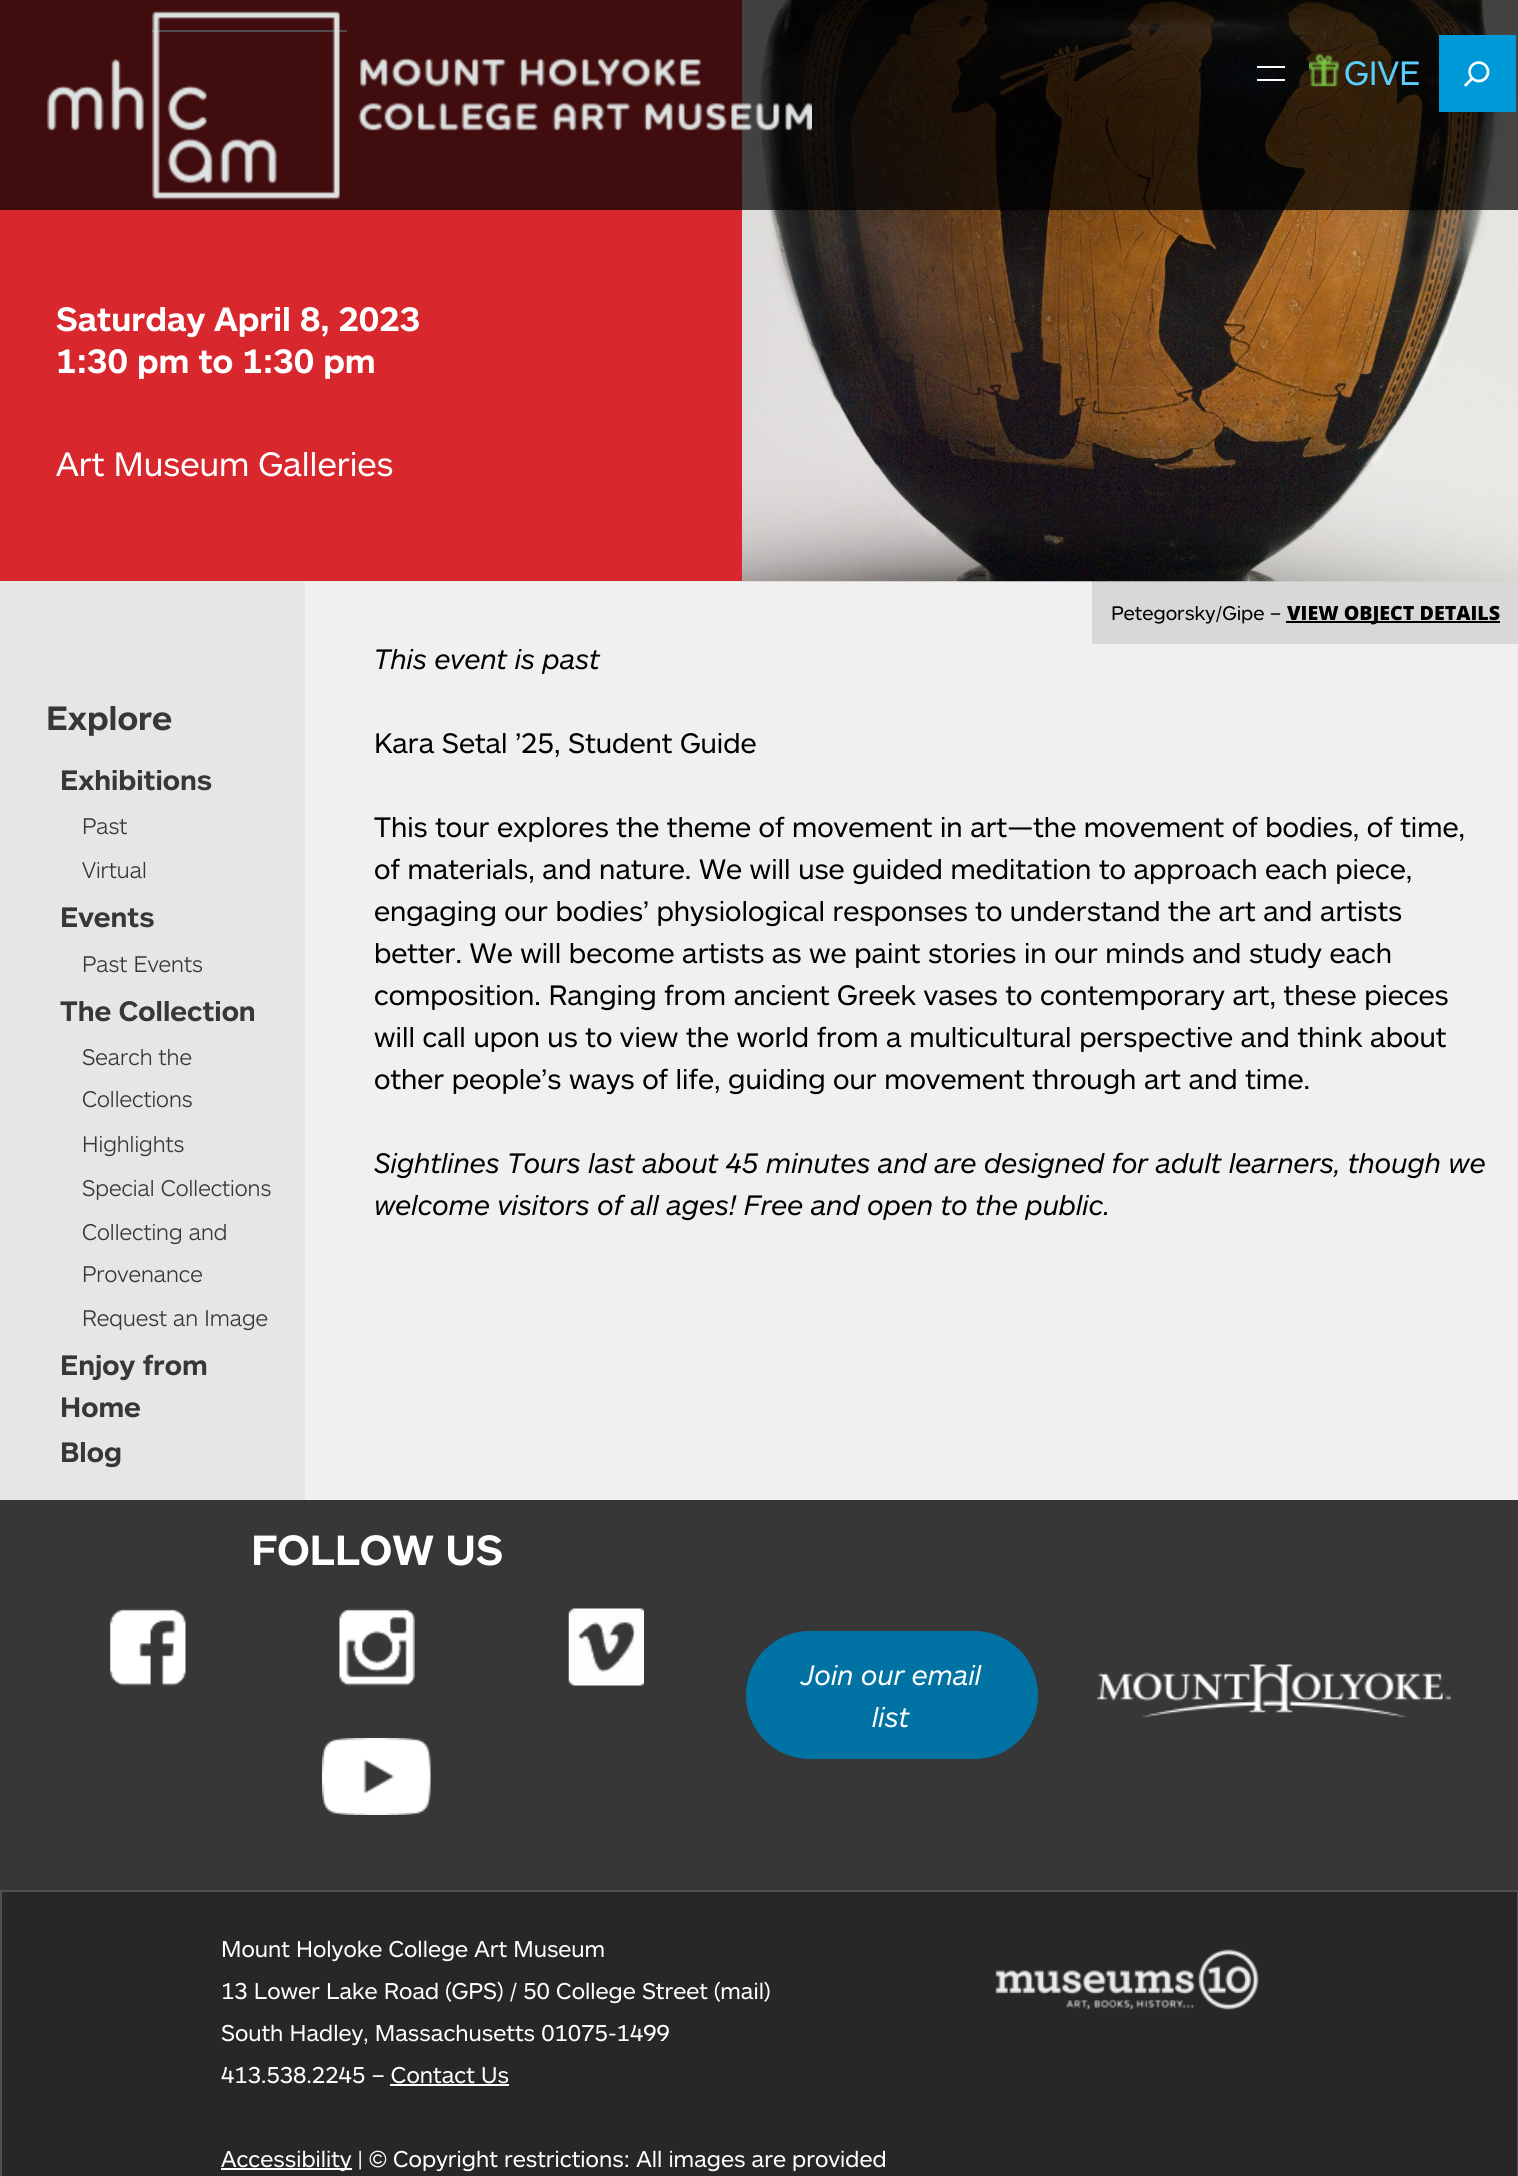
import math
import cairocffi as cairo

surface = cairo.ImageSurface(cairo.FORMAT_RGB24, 1518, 2176)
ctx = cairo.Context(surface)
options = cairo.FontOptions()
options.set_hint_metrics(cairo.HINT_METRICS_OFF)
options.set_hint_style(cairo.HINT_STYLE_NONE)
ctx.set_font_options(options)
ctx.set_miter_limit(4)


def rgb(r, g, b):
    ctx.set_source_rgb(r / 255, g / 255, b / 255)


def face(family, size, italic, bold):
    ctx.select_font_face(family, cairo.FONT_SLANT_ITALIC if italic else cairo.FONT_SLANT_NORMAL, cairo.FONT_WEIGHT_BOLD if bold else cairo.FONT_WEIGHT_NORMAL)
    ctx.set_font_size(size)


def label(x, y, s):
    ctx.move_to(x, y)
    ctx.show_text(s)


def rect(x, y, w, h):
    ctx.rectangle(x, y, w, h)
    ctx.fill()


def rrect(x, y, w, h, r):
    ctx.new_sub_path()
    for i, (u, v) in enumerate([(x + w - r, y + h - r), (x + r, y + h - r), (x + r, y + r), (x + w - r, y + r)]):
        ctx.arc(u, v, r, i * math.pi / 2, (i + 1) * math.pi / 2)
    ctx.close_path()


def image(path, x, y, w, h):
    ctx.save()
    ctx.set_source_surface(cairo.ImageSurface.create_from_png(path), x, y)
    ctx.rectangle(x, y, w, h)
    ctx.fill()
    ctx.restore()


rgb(240, 240, 240)
ctx.paint()
rgb(217, 39, 46)
rect(0, 0, 742, 581)
rgb(255, 255, 255)
rect(152, 30, 195, 2)
image('image3.png', 742, 0, 776, 582)
ctx.set_source_rgba(0, 0, 0, 0.7)
rect(0, 0, 1518, 210)
image('image0.png', 46, 10, 766, 190)
rgb(255, 255, 255)
rect(1257, 66, 28, 2)
rect(1257, 79, 28, 2)
image('image1.png', 1309, 54, 30, 33)
face('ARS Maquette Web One', 33.6, 0, 0)
rgb(88, 206, 255)
label(1344, 85, 'GIVE')
rgb(0, 153, 216)
rect(1439, 35, 77, 77)
image('image2.png', 1464, 61, 26, 26)
face('ARS Maquette Web One', 33.6, 0, 1)
rgb(255, 255, 255)
label(56, 331, 'Saturday April 8, 2023')
label(56, 373, '1:30 pm to 1:30 pm')
face('ARS Maquette Web One', 33.6, 0, 0)
label(56, 476, 'Art Museum Galleries')
ctx.set_source_rgba(0, 0, 0, 0.1)
rect(1092, 581, 426, 63)
face('ARS Maquette Web One', 19.6, 0, 0)
rgb(0, 0, 0)
label(1111, 620, 'Petegorsky/Gipe –')
rect(1286, 621, 214, 2)
face('Open Sans ExtraBold', 19.6, 0, 0)
label(1287, 620, 'VIEW OBJECT DETAILS')
rgb(230, 230, 230)
rect(0, 581, 305, 919)
face('ARS Maquette Web One', 33.6, 0, 1)
rgb(55, 55, 55)
label(46, 730, 'Explore')
face('ARS Maquette Web One', 28, 0, 1)
label(60, 790, 'Exhibitions')
face('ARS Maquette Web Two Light', 22.5, 0, 0)
label(82, 834, 'Past')
label(82, 878, 'Virtual')
face('ARS Maquette Web One', 28, 0, 1)
label(60, 927, 'Events')
face('ARS Maquette Web Two Light', 22.5, 0, 0)
label(82, 972, 'Past Events')
face('ARS Maquette Web One', 28, 0, 1)
label(60, 1021, 'The Collection')
face('ARS Maquette Web Two Light', 22.5, 0, 0)
label(82, 1065, 'Search the')
label(82, 1107, 'Collections')
label(82, 1152, 'Highlights')
label(82, 1196, 'Special Collections')
label(82, 1240, 'Collecting and')
label(82, 1282, 'Provenance')
label(82, 1326, 'Request an Image')
face('ARS Maquette Web One', 28, 0, 1)
label(60, 1375, 'Enjoy from')
label(60, 1417, 'Home')
label(60, 1462, 'Blog')
face('ARS Maquette Web One', 28, 1, 0)
rgb(0, 0, 0)
label(374, 669, 'This event is past')
face('ARS Maquette Web One', 28, 0, 0)
label(374, 753, 'Kara Setal ’25, Student Guide')
label(374, 837, 'This tour explores the theme of movement in art—the movement of bodies, of time,')
label(374, 879, 'of materials, and nature. We will use guided meditation to approach each piece,')
label(374, 921, 'engaging our bodies’ physiological responses to understand the art and artists')
label(374, 963, 'better. We will become artists as we paint stories in our minds and study each')
label(374, 1005, 'composition. Ranging from ancient Greek vases to contemporary art, these pieces')
label(374, 1047, 'will call upon us to view the world from a multicultural perspective and think about')
label(374, 1089, 'other people’s ways of life, guiding our movement through art and time.')
face('ARS Maquette Web One', 28, 1, 0)
label(374, 1173, 'Sightlines Tours last about 45 minutes and are designed for adult learners, though we')
label(374, 1215, 'welcome visitors of all ages! Free and open to the public.')
rgb(55, 55, 55)
rect(0, 1500, 1518, 390)
face('ARS Maquette Web One', 42, 0, 1)
rgb(255, 255, 255)
label(251, 1565, 'FOLLOW US')
image('image4.png', 110, 1608, 76, 78)
image('image5.png', 339, 1608, 76, 78)
image('image6.png', 568, 1608, 76, 78)
image('image7.png', 322, 1738, 109, 77)
rgb(0, 114, 163)
rrect(746, 1631, 292, 128, 64)
ctx.fill()
face('ARS Maquette Web One', 28, 1, 0)
rgb(255, 255, 255)
label(801, 1685, 'Join our email')
label(872, 1727, 'list')
image('image8.png', 1097, 1664, 354, 53)
rgb(39, 39, 39)
ctx.rectangle(1, 1891, 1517, 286)
ctx.fill_preserve()
rgb(80, 80, 80)
ctx.stroke()
face('ARS Maquette Web One', 22.75, 0, 0)
rgb(255, 255, 255)
label(221, 1957, 'Mount Holyoke College Art Museum')
label(221, 1999, '13 Lower Lake Road (GPS) / 50 College Street (mail)')
label(221, 2041, 'South Hadley, Massachusetts 01075-1499')
label(221, 2083, '413.538.2245 – Contact Us')
rect(390, 2084, 119, 2)
rect(221, 2168, 131, 2)
label(221, 2167, 'Accessibility | © Copyright restrictions: All images are provided')
image('image9.png', 995, 1949, 264, 61)
surface.write_to_png('render.png')
